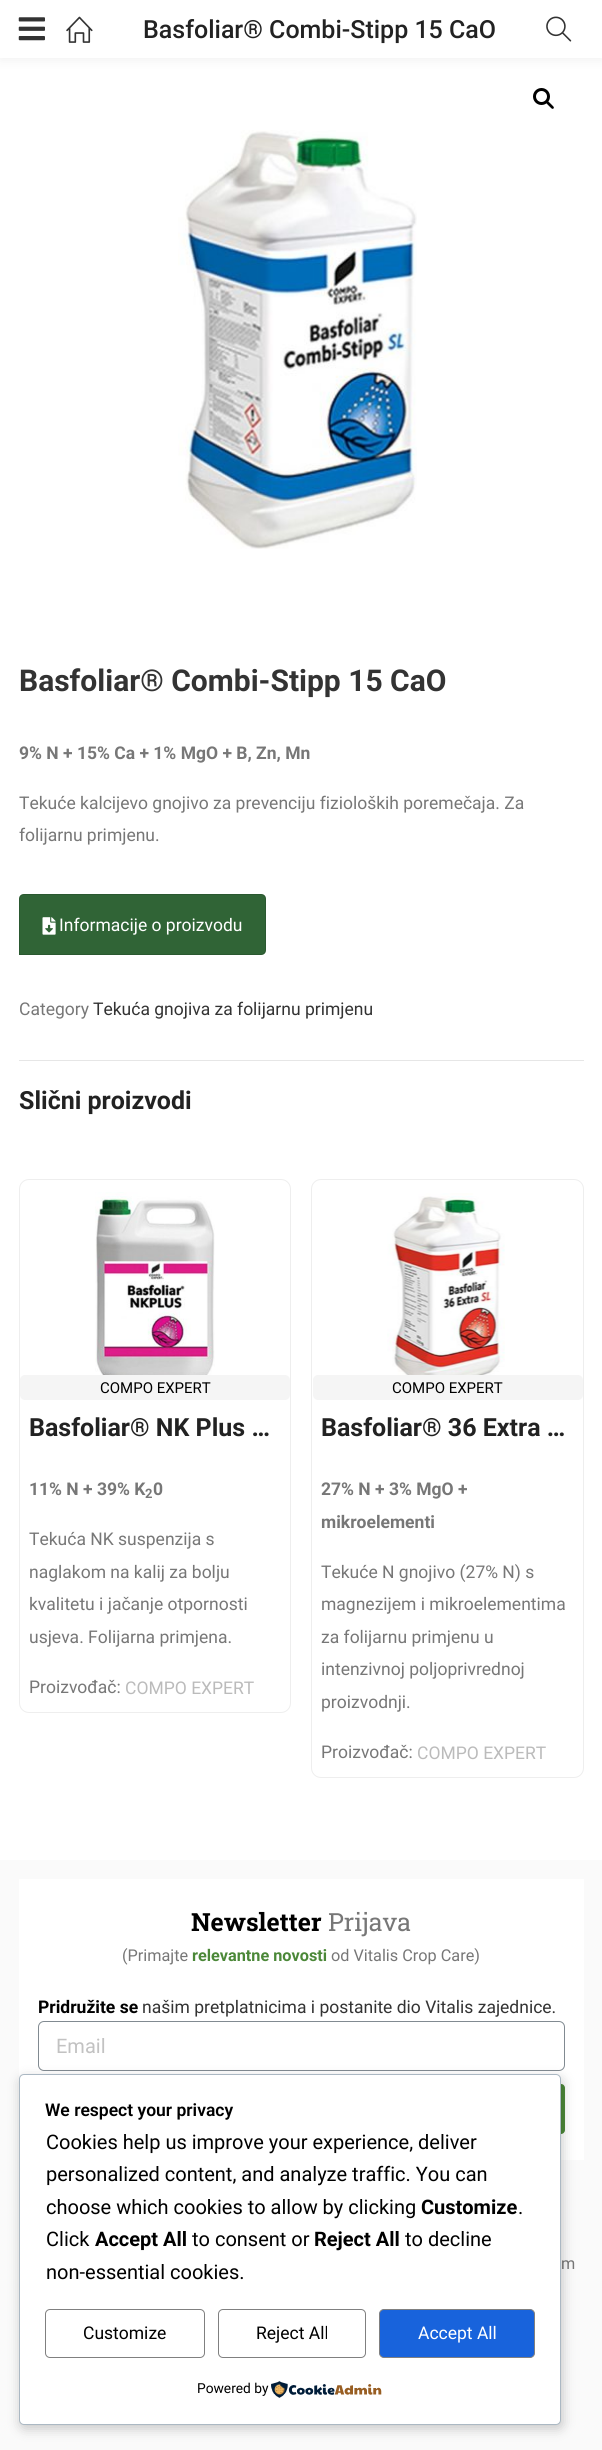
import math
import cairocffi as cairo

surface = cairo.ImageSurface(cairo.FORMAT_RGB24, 602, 2450)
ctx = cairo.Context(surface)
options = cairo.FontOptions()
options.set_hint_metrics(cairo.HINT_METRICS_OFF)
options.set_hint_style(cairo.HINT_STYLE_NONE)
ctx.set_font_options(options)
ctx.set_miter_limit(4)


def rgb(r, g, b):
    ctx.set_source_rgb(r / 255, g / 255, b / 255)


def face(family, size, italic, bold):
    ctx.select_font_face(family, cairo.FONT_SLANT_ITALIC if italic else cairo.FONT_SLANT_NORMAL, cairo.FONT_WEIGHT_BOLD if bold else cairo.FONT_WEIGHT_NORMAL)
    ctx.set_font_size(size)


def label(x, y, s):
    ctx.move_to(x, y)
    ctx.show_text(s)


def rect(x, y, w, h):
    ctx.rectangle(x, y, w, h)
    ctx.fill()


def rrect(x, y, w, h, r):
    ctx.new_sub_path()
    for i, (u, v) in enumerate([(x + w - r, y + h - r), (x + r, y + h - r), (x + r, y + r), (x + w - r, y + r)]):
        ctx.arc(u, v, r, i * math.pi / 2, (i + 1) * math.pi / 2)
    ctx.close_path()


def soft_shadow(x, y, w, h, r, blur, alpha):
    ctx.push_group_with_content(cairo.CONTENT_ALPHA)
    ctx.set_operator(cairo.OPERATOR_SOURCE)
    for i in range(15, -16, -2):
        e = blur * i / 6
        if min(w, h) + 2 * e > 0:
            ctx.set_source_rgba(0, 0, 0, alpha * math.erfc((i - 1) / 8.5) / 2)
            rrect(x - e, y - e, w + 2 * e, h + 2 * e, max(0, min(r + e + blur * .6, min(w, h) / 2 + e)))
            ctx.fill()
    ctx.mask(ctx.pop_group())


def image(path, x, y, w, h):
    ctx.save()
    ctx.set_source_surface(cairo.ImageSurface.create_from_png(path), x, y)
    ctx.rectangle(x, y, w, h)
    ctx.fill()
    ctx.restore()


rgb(255, 255, 255)
ctx.paint()
rgb(0, 0, 0)
soft_shadow(0, 3, 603, 57, 0, 6, 0.06)
rgb(255, 255, 255)
rect(0, 0, 602, 58)
image('image0.png', 18, 17, 27, 24)
image('image1.png', 66, 16, 27, 27)
face('Roboto Medium', 25, 0, 0)
rgb(34, 34, 34)
label(143, 38, 'Basfoliar® Combi-Stipp 15 CaO')
image('image2.png', 546, 16, 26, 26)
ctx.arc(541.5, 96.5, 7, 0, 2 * math.pi)
rgb(0, 0, 0)
ctx.set_line_width(3)
ctx.stroke()
ctx.new_path()
ctx.move_to(546.5, 101.5)
ctx.curve_to(548, 100, 550, 103.5, 551, 104)
ctx.curve_to(551.5, 105, 555, 107, 553.5, 108.5)
ctx.curve_to(552, 110, 550, 106.5, 549, 106)
ctx.curve_to(548.5, 105, 545, 103, 546.5, 101.5)
ctx.close_path()
ctx.fill()
image('image3.png', 178, 130, 239, 419)
face('Roboto', 30, 0, 1)
rgb(51, 51, 51)
label(19, 691, 'Basfoliar® Combi-Stipp 15 CaO')
face('Roboto', 17.5, 0, 1)
rgb(119, 119, 119)
label(19, 759, '9% N + 15% Ca + 1% MgO + B, Zn, Mn')
face('Roboto', 17.5, 0, 0)
label(19, 809, 'Tekuće kalcijevo gnojivo za prevenciju fizioloških poremečaja. Za')
label(19, 841, 'folijarnu primjenu.')
rgb(48, 100, 54)
ctx.new_path()
ctx.move_to(24, 894)
ctx.line_to(261, 894)
ctx.curve_to(264, 894, 266, 896, 266, 899)
ctx.line_to(266, 950)
ctx.curve_to(266, 953, 264, 955, 261, 955)
ctx.line_to(19, 955)
ctx.line_to(19, 899)
ctx.curve_to(19, 896, 21, 894, 24, 894)
ctx.close_path()
ctx.fill()
ctx.new_path()
ctx.move_to(24, 894.5)
ctx.line_to(261, 894.5)
ctx.curve_to(263.5, 894.5, 265.5, 896.5, 265.5, 899)
ctx.line_to(265.5, 950)
ctx.curve_to(265.5, 952.5, 263.5, 954.5, 261, 954.5)
ctx.line_to(19.5, 954.5)
ctx.line_to(19.5, 899)
ctx.curve_to(19.5, 896.5, 21.5, 894.5, 24, 894.5)
ctx.close_path()
ctx.set_source_rgba(0, 0, 0, 0.12)
ctx.set_line_width(1)
ctx.stroke()
image('image4.png', 42, 917, 14, 18)
rgb(255, 255, 255)
label(59, 931, 'Informacije o proizvodu')
rgb(119, 119, 119)
label(19, 1015, 'Category')
rgb(51, 51, 51)
label(93, 1015, 'Tekuća gnojiva za folijarnu primjenu')
rgb(230, 230, 230)
rect(19, 1060, 565, 1)
face('Roboto', 25, 0, 1)
rgb(34, 34, 34)
label(19, 1109, 'Slični proizvodi')
rrect(19.5, 1179.5, 271, 533, 9.5)
rgb(238, 238, 238)
ctx.stroke()
image('image5.png', 95, 1192, 120, 183)
rgb(245, 245, 245)
rrect(20, 1375, 270, 25, 5)
ctx.fill()
face('Roboto', 15, 0, 0)
rgb(0, 0, 0)
label(100, 1393, 'COMPO EXPERT')
face('Roboto', 25, 0, 1)
rgb(34, 34, 34)
label(29, 1436, 'Basfoliar® NK Plus …')
face('Roboto', 17.5, 0, 1)
rgb(119, 119, 119)
label(29, 1495, '11% N + 39% K')
face('Roboto', 13, 0, 1)
label(145, 1498, '2')
face('Roboto', 17.5, 0, 1)
label(153, 1495, '0')
face('Roboto', 17.5, 0, 0)
label(29, 1545, 'Tekuća NK suspenzija s')
label(29, 1578, 'naglakom na kalij za bolju')
label(29, 1610, 'kvalitetu i jačanje otpornosti')
label(29, 1643, 'usjeva. Folijarna primjena.')
label(29, 1693, 'Proizvođač:')
rgb(187, 187, 187)
label(125, 1694, 'COMPO EXPERT')
rrect(311.5, 1179.5, 272, 598, 9.5)
rgb(238, 238, 238)
ctx.stroke()
image('image6.png', 387, 1193, 118, 182)
rgb(245, 245, 245)
rrect(313, 1375, 270, 25, 5)
ctx.fill()
face('Roboto', 15, 0, 0)
rgb(0, 0, 0)
label(392, 1393, 'COMPO EXPERT')
face('Roboto', 25, 0, 1)
rgb(34, 34, 34)
label(321, 1436, 'Basfoliar® 36 Extra …')
face('Roboto', 17.5, 0, 1)
rgb(119, 119, 119)
label(321, 1495, '27% N + 3% MgO +')
label(321, 1528, 'mikroelementi')
face('Roboto', 17.5, 0, 0)
label(321, 1578, 'Tekuće N gnojivo (27% N) s')
label(321, 1610, 'magnezijem i mikroelementima')
label(321, 1643, 'za folijarnu primjenu u')
label(321, 1675, 'intenzivnoj poljoprivrednoj')
label(321, 1708, 'proizvodnji.')
label(321, 1758, 'Proizvođač:')
rgb(187, 187, 187)
label(417, 1759, 'COMPO EXPERT')
rgb(250, 250, 250)
rect(0, 1860, 602, 590)
rgb(255, 255, 255)
rect(19, 1879, 565, 281)
face('Roboto Slab', 25, 0, 1)
rgb(0, 0, 0)
label(191, 1931, 'Newsletter')
face('Roboto Slab', 25, 0, 0)
rgb(119, 119, 119)
label(328, 1931, 'Prijava')
face('Roboto', 16.25, 0, 0)
label(122, 1961, '(Primajte')
face('Roboto', 16.25, 0, 1)
rgb(75, 136, 56)
label(192, 1961, 'relevantne novosti')
face('Roboto', 16.25, 0, 0)
rgb(119, 119, 119)
label(331, 1961, 'od Vitalis Crop Care)')
face('Roboto', 17.5, 0, 1)
rgb(0, 0, 0)
label(38, 2013, 'Pridružite se')
face('Roboto', 17.5, 0, 0)
rgb(51, 51, 51)
label(142, 2013, 'našim pretplatnicima i postanite dio Vitalis zajednice.')
rrect(38.5, 2021.5, 526, 49, 5.5)
rgb(129, 138, 145)
ctx.stroke()
face('Roboto', 20, 0, 0)
rgb(194, 194, 194)
label(56, 2053, 'Email')
rgb(75, 136, 56)
rrect(38, 2084, 527, 50, 4)
ctx.fill()
face('Roboto', 16.25, 0, 0)
rgb(119, 119, 119)
label(561, 2269, 'm')
rgb(0, 0, 0)
soft_shadow(20, 2078, 543, 351, 5, 6, 0.2)
rgb(255, 255, 255)
rrect(19.5, 2074.5, 541, 350, 4.5)
ctx.fill_preserve()
rgb(171, 184, 195)
ctx.stroke()
face('Roboto SemiBold', 17.5, 0, 0)
rgb(0, 0, 0)
label(45, 2116, 'We respect your privacy')
face('Roboto', 20, 0, 0)
label(46, 2149, 'Cookies help us improve your experience, deliver')
label(46, 2181, 'personalized content, and analyze traffic. You can')
label(46, 2214, 'choose which cookies to allow by clicking')
face('Roboto', 20, 0, 1)
label(421, 2214, 'Customize')
face('Roboto', 20, 0, 0)
label(518, 2214, '.')
label(46, 2246, 'Click')
face('Roboto', 20, 0, 1)
label(95, 2246, 'Accept All')
face('Roboto', 20, 0, 0)
label(192, 2246, 'to consent or')
face('Roboto', 20, 0, 1)
label(314, 2246, 'Reject All')
face('Roboto', 20, 0, 0)
label(405, 2246, 'to decline')
label(46, 2279, 'non-essential cookies.')
rrect(45.5, 2309.5, 159, 48, 4.5)
rgb(128, 128, 128)
ctx.stroke()
face('Roboto', 17.5, 0, 0)
rgb(0, 0, 0)
label(83, 2339, 'Customize')
rrect(218.5, 2309.5, 147, 48, 4.5)
rgb(128, 128, 128)
ctx.stroke()
rgb(0, 0, 0)
label(256, 2339, 'Reject All')
rgb(24, 99, 220)
rrect(379.5, 2309.5, 155, 48, 4.5)
ctx.fill_preserve()
rgb(128, 128, 128)
ctx.stroke()
rgb(255, 255, 255)
label(418, 2339, 'Accept All')
face('Roboto', 13.75, 0, 0)
rgb(0, 0, 0)
label(197, 2393, 'Powered by')
image('image7.png', 271, 2381, 111, 17)
surface.write_to_png('render.png')
